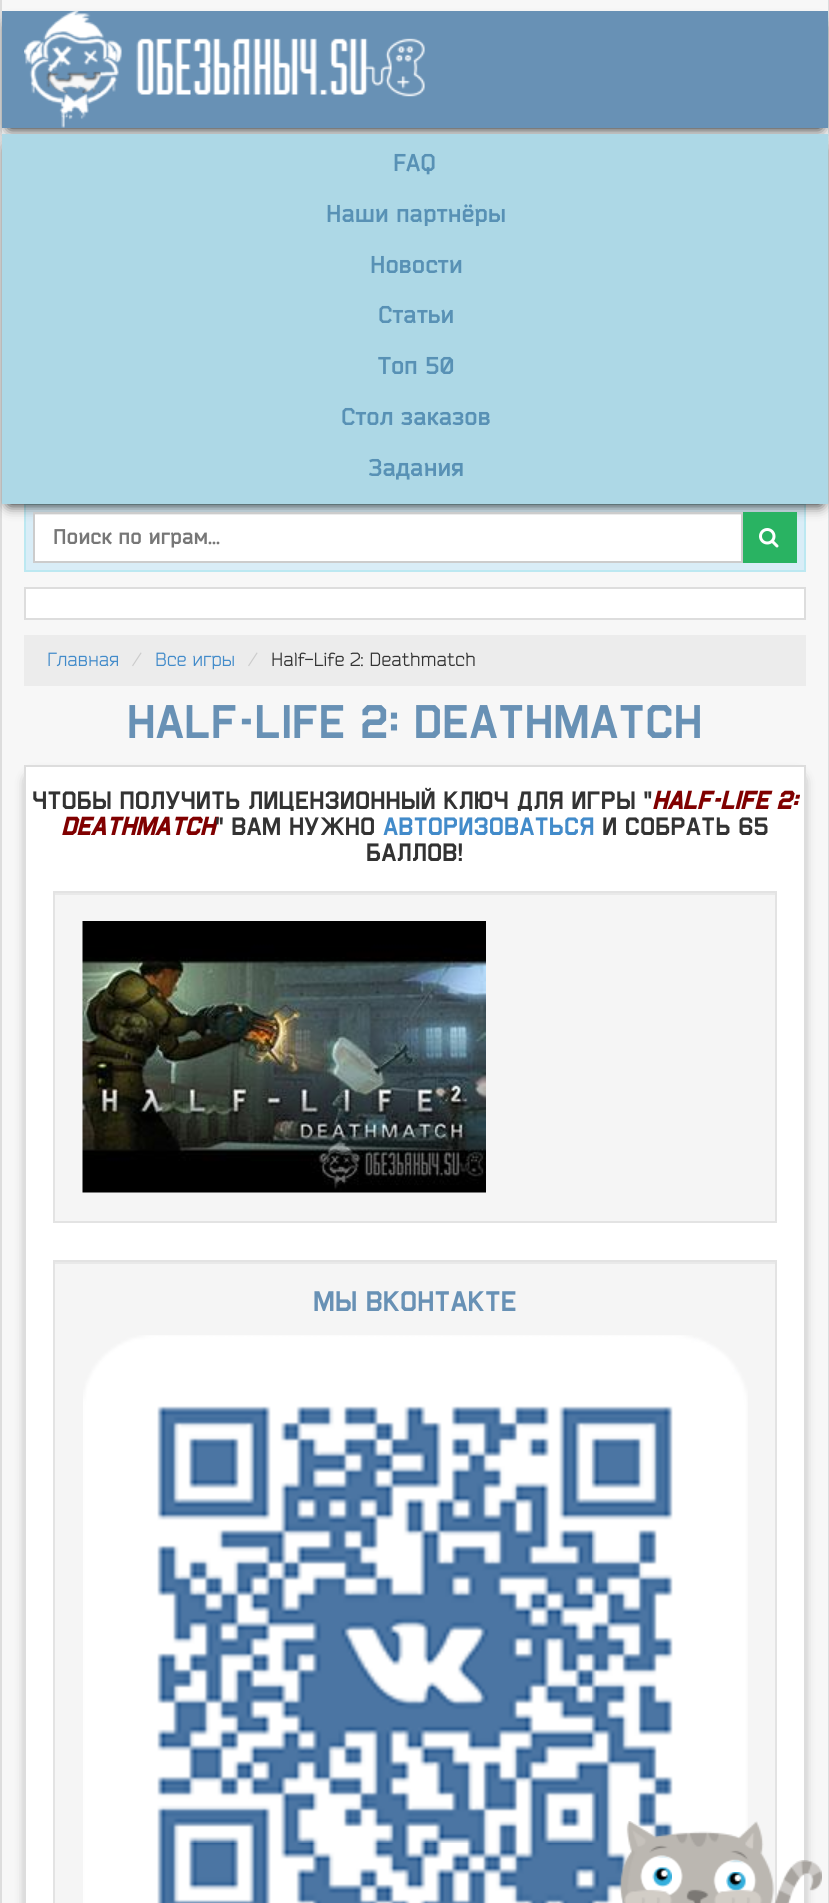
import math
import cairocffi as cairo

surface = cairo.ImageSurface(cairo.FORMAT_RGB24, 829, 1903)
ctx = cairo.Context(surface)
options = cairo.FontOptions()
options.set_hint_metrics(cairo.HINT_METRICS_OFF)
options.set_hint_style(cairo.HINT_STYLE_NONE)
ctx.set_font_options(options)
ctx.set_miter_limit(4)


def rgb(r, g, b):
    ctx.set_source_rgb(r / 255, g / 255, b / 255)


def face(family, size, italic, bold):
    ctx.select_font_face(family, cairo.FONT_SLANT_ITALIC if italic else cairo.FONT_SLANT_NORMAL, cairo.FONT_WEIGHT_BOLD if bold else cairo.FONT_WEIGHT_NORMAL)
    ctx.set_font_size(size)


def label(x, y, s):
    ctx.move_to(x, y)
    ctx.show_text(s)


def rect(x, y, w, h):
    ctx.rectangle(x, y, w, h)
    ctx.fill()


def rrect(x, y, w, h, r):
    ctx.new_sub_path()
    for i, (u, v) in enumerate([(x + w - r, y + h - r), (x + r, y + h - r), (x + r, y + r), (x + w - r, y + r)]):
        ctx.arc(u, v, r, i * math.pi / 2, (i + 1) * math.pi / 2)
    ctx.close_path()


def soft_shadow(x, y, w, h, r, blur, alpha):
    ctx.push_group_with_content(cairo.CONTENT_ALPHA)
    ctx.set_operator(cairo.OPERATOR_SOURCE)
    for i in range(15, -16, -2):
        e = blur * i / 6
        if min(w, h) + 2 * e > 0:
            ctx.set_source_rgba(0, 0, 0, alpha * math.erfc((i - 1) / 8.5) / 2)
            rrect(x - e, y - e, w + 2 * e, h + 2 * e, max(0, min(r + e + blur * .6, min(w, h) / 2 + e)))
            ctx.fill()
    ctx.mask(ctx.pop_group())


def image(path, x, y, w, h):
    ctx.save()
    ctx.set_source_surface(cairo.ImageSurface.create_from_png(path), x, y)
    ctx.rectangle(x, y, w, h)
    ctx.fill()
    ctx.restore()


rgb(247, 247, 247)
ctx.paint()
rgb(221, 221, 221)
rect(828, 0, 1, 1903)
rect(0, 0, 2, 1903)
rgb(1, 2, 2)
soft_shadow(9, 26, 812, 102, 0, 7, 1)
rgb(104, 145, 181)
rect(2, 11, 826, 117)
image('image0.png', 24, 11, 401, 117)
rgb(217, 237, 247)
ctx.rectangle(25, 504, 780, 67)
ctx.fill_preserve()
rgb(188, 232, 241)
ctx.stroke()
rgb(1, 2, 2)
soft_shadow(9, 149, 812, 355, 0, 7, 1)
rgb(173, 216, 230)
rect(2, 134, 826, 370)
face('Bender', 24, 0, 1)
rgb(88, 145, 181)
label(393, 171, 'FAQ')
label(326, 222, 'Наши партнёры')
label(370, 273, 'Новости')
label(378, 323, 'Статьи')
label(378, 374, 'Топ 50')
label(341, 425, 'Стол заказов')
label(369, 476, 'Задания')
rgb(255, 255, 255)
rect(35, 515, 706, 46)
rgb(236, 236, 236)
rect(35, 514, 706, 1)
ctx.rectangle(34, 513, 708, 49)
rgb(204, 204, 204)
ctx.stroke()
face('Bender', 21, 0, 1)
rgb(119, 119, 119)
label(53, 544, 'Поиск по играм...')
rgb(41, 179, 98)
rect(743, 512, 54, 51)
image('image1.png', 759, 528, 20, 20)
rgb(255, 255, 255)
ctx.rectangle(25, 588, 780, 31)
ctx.fill_preserve()
rgb(221, 221, 221)
ctx.stroke()
rgb(236, 236, 236)
rect(24, 635, 782, 51)
face('Bender', 19.1, 0, 0)
rgb(66, 139, 202)
label(47, 666, 'Главная')
rgb(204, 204, 204)
label(132, 666, '/')
rgb(66, 139, 202)
label(155, 666, 'Все игры')
rgb(204, 204, 204)
label(248, 666, '/')
rgb(51, 51, 51)
label(271, 666, 'Half-Life 2: Deathmatch')
face('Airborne', 45, 0, 0)
rgb(104, 145, 181)
label(127, 738, 'Half-Life 2: Deathmatch')
rgb(1, 2, 2)
soft_shadow(32, 780, 766, 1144, 0, 7, 1)
rgb(255, 255, 255)
ctx.rectangle(25, 766, 780, 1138)
ctx.fill_preserve()
rgb(221, 221, 221)
ctx.stroke()
face('Airborne', 24, 0, 0)
rgb(51, 51, 51)
label(32, 809, 'Чтобы получить лицензионный ключ для игры "')
face('Airborne', 24, 1, 1)
rgb(128, 0, 0)
label(652, 809, 'Half-Life 2:')
label(61, 835, 'Deathmatch')
face('Airborne', 24, 0, 0)
rgb(51, 51, 51)
label(215, 835, '" Вам нужно')
rgb(66, 139, 202)
label(383, 835, 'Авторизоваться')
rgb(51, 51, 51)
label(602, 835, 'и собрать 65')
label(366, 861, 'баллов!')
rgb(245, 245, 245)
rect(55, 895, 720, 326)
rgb(233, 233, 233)
rect(54, 893, 722, 2)
ctx.rectangle(54, 892, 722, 330)
rgb(227, 227, 227)
ctx.stroke()
image('image2.png', 82, 921, 404, 272)
rgb(245, 245, 245)
rect(55, 1264, 720, 639)
rgb(233, 233, 233)
rect(54, 1262, 722, 2)
ctx.rectangle(54, 1261, 722, 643)
rgb(227, 227, 227)
ctx.stroke()
face('Airborne', 27, 0, 0)
rgb(104, 145, 181)
label(313, 1311, 'Мы ВКонтакте')
image('image3.png', 83, 1335, 665, 568)
image('image4.png', 619, 1821, 156, 82)
image('image5.png', 640, 1855, 43, 42)
image('image6.png', 652, 1867, 20, 20)
image('image7.png', 713, 1859, 44, 36)
image('image8.png', 726, 1872, 20, 20)
image('image9.png', 624, 1860, 198, 43)
surface.write_to_png('render.png')
